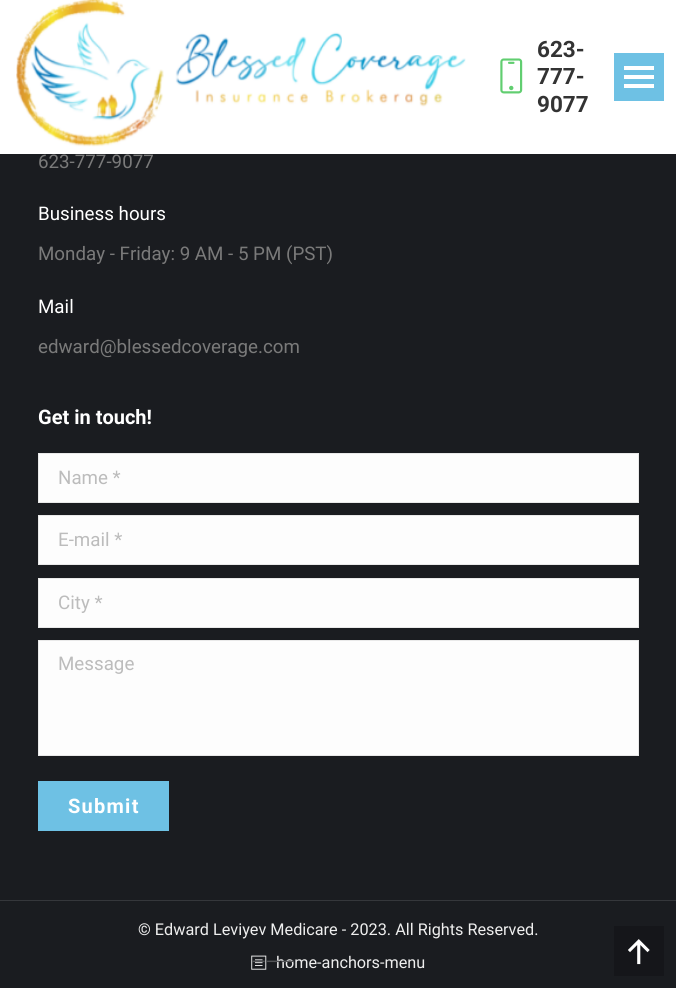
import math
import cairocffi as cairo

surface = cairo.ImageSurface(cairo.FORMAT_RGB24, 676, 988)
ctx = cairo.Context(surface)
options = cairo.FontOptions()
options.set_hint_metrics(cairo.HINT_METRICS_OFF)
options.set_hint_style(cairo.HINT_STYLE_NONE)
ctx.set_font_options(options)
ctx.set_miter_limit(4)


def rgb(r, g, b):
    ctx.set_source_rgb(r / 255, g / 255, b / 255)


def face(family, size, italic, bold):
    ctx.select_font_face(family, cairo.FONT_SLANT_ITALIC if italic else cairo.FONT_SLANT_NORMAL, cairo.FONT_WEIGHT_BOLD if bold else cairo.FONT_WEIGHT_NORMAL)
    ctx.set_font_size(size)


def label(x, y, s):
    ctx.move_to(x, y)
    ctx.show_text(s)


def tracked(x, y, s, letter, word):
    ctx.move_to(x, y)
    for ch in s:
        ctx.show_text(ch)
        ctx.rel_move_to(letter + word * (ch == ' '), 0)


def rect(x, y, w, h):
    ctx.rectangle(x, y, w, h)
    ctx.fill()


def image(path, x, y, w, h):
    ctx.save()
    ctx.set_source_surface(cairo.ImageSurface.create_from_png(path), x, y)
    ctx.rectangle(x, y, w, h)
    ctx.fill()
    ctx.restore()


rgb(26, 28, 32)
ctx.paint()
rgb(255, 255, 255)
rect(0, 0, 676, 154)
image('image0.png', 16, 0, 450, 147)
face('Roboto', 22.5, 0, 1)
rgb(51, 51, 51)
label(537, 57, '623-')
image('image1.png', 500, 58, 23, 36)
label(537, 84, '777-')
label(537, 112, '9077')
rgb(110, 193, 228)
rect(614, 53, 50, 48)
rgb(255, 255, 255)
rect(624, 66, 30, 4)
rect(624, 75, 30, 4)
rect(624, 84, 30, 4)
face('Roboto', 18.75, 0, 0)
rgb(122, 122, 122)
label(38, 168, '623-777-9077')
rgb(255, 255, 255)
label(38, 220, 'Business hours')
rgb(122, 122, 122)
label(38, 260, 'Monday - Friday: 9 AM - 5 PM (PST)')
rgb(255, 255, 255)
label(38, 313, 'Mail')
rgb(122, 122, 122)
label(38, 353, 'edward@blessedcoverage.com')
face('Roboto', 20, 0, 1)
rgb(255, 255, 255)
label(38, 424, 'Get in touch!')
rgb(253, 253, 253)
ctx.rectangle(38.5, 453.5, 600, 49)
ctx.fill_preserve()
rgb(233, 233, 233)
ctx.set_line_width(1)
ctx.stroke()
face('Roboto', 18.75, 0, 0)
rgb(188, 188, 188)
label(58, 484, 'Name *')
rgb(253, 253, 253)
ctx.rectangle(38.5, 515.5, 600, 49)
ctx.fill_preserve()
rgb(233, 233, 233)
ctx.stroke()
rgb(188, 188, 188)
label(58, 546, 'E-mail *')
rgb(253, 253, 253)
ctx.rectangle(38.5, 578.5, 600, 49)
ctx.fill_preserve()
rgb(233, 233, 233)
ctx.stroke()
rgb(188, 188, 188)
label(58, 609, 'City *')
rgb(253, 253, 253)
ctx.rectangle(38.5, 640.5, 600, 115)
ctx.fill_preserve()
rgb(233, 233, 233)
ctx.stroke()
rgb(188, 188, 188)
label(58, 670, 'Message')
rgb(110, 193, 228)
rect(38, 781, 131, 50)
face('Roboto', 20, 0, 1)
rgb(255, 255, 255)
tracked(68, 813, 'Submit', 1.25, 0)
rgb(53, 55, 59)
rect(0, 900, 676, 1)
face('Roboto', 16.25, 0, 0)
rgb(238, 238, 238)
label(138, 935, '© Edward Leviyev Medicare - 2023. All Rights Reserved.')
image('image2.png', 251, 955, 16, 15)
label(276, 968, 'home-anchors-menu')
face('Roboto', 18.75, 0, 0)
rgb(84, 85, 88)
label(251, 968, '———')
rgb(21, 22, 26)
rect(614, 926, 50, 50)
image('image3.png', 628, 939, 22, 26)
surface.write_to_png('render.png')
